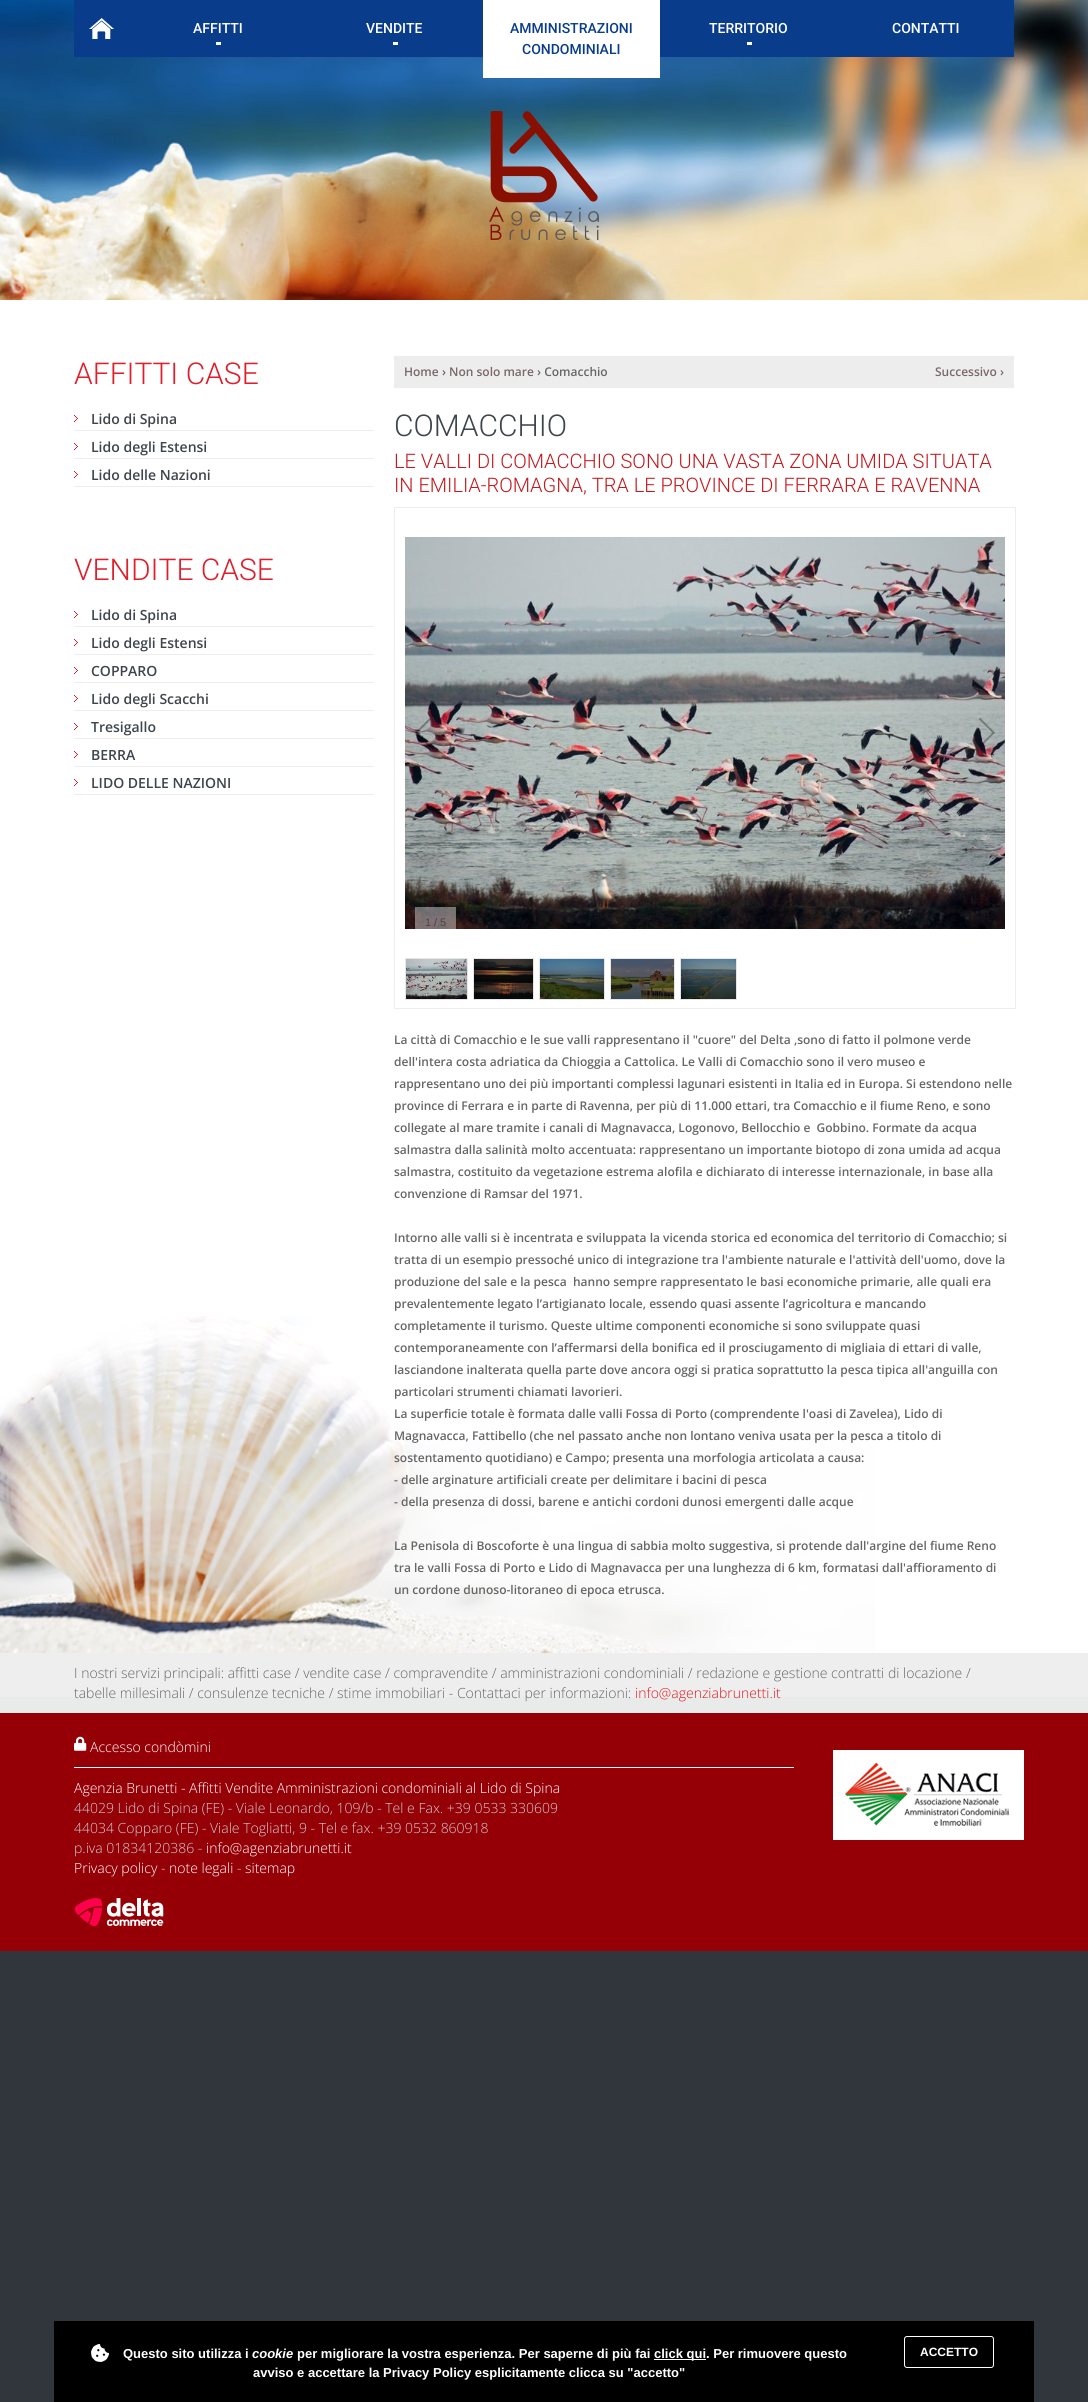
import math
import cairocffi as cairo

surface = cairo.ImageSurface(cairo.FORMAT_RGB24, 1088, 2402)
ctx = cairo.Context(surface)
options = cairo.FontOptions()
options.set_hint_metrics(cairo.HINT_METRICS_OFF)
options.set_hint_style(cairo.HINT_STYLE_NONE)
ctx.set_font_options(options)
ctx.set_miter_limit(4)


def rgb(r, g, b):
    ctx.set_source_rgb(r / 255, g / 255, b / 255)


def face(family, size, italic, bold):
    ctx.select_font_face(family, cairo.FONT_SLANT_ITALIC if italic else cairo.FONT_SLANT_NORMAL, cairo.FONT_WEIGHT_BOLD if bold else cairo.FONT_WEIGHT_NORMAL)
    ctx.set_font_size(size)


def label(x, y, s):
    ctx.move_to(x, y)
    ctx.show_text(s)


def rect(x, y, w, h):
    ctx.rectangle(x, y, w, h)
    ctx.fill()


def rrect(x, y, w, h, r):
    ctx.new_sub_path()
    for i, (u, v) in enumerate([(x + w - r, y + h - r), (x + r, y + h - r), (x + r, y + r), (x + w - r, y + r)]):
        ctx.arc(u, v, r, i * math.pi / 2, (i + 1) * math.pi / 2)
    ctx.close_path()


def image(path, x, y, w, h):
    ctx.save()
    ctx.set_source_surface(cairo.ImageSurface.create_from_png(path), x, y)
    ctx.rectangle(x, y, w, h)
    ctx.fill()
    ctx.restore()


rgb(48, 54, 59)
ctx.paint()
image('image0.png', 0, 0, 1088, 300)
rgb(9, 61, 139)
rect(74, 0, 409, 57)
image('image1.png', 89, 18, 25, 21)
rgb(255, 255, 255)
rect(483, 0, 177, 78)
face('Roboto Medium', 14, 0, 0)
rgb(9, 61, 139)
label(510, 33, 'AMMINISTRAZIONI')
label(522, 54, 'CONDOMINIALI')
rect(660, 0, 354, 57)
rgb(255, 255, 255)
label(709, 33, 'TERRITORIO')
rect(747, 42, 5, 3)
label(892, 33, 'CONTATTI')
label(193, 33, 'AFFITTI')
rect(216, 42, 5, 3)
label(366, 33, 'VENDITE')
rect(393, 42, 5, 3)
image('image2.png', 489, 111, 110, 129)
rect(0, 300, 1088, 1353)
image('image3.png', 0, 1316, 875, 337)
face('Roboto Light', 30, 0, 0)
rgb(222, 32, 44)
label(74, 384, 'AFFITTI CASE')
image('image4.png', 74, 415, 4, 7)
rgb(237, 237, 237)
rect(74, 430, 300, 1)
face('Open Sans SemiBold', 14, 0, 0)
rgb(62, 69, 76)
label(91, 424, 'Lido di Spina')
image('image4.png', 74, 443, 4, 7)
rgb(237, 237, 237)
rect(74, 458, 300, 1)
rgb(62, 69, 76)
label(91, 452, 'Lido degli Estensi')
image('image4.png', 74, 471, 4, 7)
rgb(237, 237, 237)
rect(74, 486, 300, 1)
rgb(62, 69, 76)
label(91, 480, 'Lido delle Nazioni')
face('Roboto Light', 30, 0, 0)
rgb(222, 32, 44)
label(74, 580, 'VENDITE CASE')
image('image4.png', 74, 611, 4, 7)
rgb(237, 237, 237)
rect(74, 626, 300, 1)
face('Open Sans SemiBold', 14, 0, 0)
rgb(62, 69, 76)
label(91, 620, 'Lido di Spina')
image('image4.png', 74, 639, 4, 7)
rgb(237, 237, 237)
rect(74, 654, 300, 1)
rgb(62, 69, 76)
label(91, 648, 'Lido degli Estensi')
image('image4.png', 74, 667, 4, 7)
rgb(237, 237, 237)
rect(74, 682, 300, 1)
rgb(62, 69, 76)
label(91, 676, 'COPPARO')
image('image4.png', 74, 695, 4, 7)
rgb(237, 237, 237)
rect(74, 710, 300, 1)
rgb(62, 69, 76)
label(91, 704, 'Lido degli Scacchi')
image('image4.png', 74, 723, 4, 7)
rgb(237, 237, 237)
rect(74, 738, 300, 1)
rgb(62, 69, 76)
label(91, 732, 'Tresigallo')
image('image4.png', 74, 751, 4, 7)
rgb(237, 237, 237)
rect(74, 766, 300, 1)
rgb(62, 69, 76)
label(91, 760, 'BERRA')
image('image4.png', 74, 779, 4, 7)
rgb(237, 237, 237)
rect(74, 794, 300, 1)
rgb(62, 69, 76)
label(91, 788, 'LIDO DELLE NAZIONI')
rgb(237, 237, 237)
rect(394, 356, 620, 32)
face('Open Sans SemiBold', 12, 0, 0)
rgb(121, 103, 105)
label(404, 376, 'Home')
rgb(102, 102, 102)
label(442, 376, '›')
rgb(121, 103, 105)
label(449, 376, 'Non solo mare')
rgb(102, 102, 102)
label(537, 376, '› Comacchio')
rgb(121, 103, 105)
label(935, 376, 'Successivo ›')
face('Roboto Light', 30, 0, 0)
rgb(62, 69, 76)
label(394, 436, 'COMACCHIO')
face('Roboto Light', 20, 0, 0)
rgb(196, 25, 29)
label(394, 468, 'LE VALLI DI COMACCHIO SONO UNA VASTA ZONA UMIDA SITUATA')
label(394, 492, 'IN EMILIA-ROMAGNA, TRA LE PROVINCE DI FERRARA E RAVENNA')
ctx.rectangle(394.5, 507.5, 621, 501)
rgb(237, 237, 237)
ctx.set_line_width(1)
ctx.stroke()
image('image5.png', 405, 537, 600, 392)
image('image6.png', 415, 718, 16, 28)
image('image7.png', 979, 718, 16, 29)
ctx.set_source_rgba(1, 1, 1, 0.4)
rect(415, 907, 41, 22)
face('Liberation Sans', 11, 0, 0)
rgb(77, 68, 69)
label(425, 926, '1')
label(434, 926, '/')
label(440, 926, '5')
ctx.rectangle(405.5, 958.5, 62, 41)
rgb(230, 230, 230)
ctx.stroke()
image('image8.png', 406, 959, 61, 40)
rgb(0, 0, 0)
ctx.rectangle(473.5, 958.5, 60, 41)
ctx.fill_preserve()
rgb(230, 230, 230)
ctx.stroke()
image('image9.png', 474, 959, 59, 40)
rgb(0, 0, 0)
ctx.rectangle(539.5, 958.5, 65, 41)
ctx.fill_preserve()
rgb(230, 230, 230)
ctx.stroke()
image('image10.png', 540, 959, 64, 40)
rgb(0, 0, 0)
ctx.rectangle(610.5, 958.5, 64, 41)
ctx.fill_preserve()
rgb(230, 230, 230)
ctx.stroke()
image('image11.png', 611, 959, 63, 40)
rgb(0, 0, 0)
ctx.rectangle(680.5, 958.5, 56, 41)
ctx.fill_preserve()
rgb(230, 230, 230)
ctx.stroke()
image('image12.png', 681, 959, 55, 40)
face('Open Sans SemiBold', 12, 0, 0)
rgb(102, 102, 102)
label(394, 1044, 'La città di Comacchio e le sue valli rappresentano il "cuore" del Delta ,sono di fatto il polmone verde')
label(394, 1066, 'dell\'intera costa adriatica da Chioggia a Cattolica. Le Valli di Comacchio sono il vero museo e')
label(394, 1088, 'rappresentano uno dei più importanti complessi lagunari esistenti in Italia ed in Europa. Si estendono nelle')
label(394, 1110, 'province di Ferrara e in parte di Ravenna, per più di 11.000 ettari, tra Comacchio e il fiume Reno, e sono')
label(394, 1132, 'collegate al mare tramite i canali di Magnavacca, Logonovo, Bellocchio e  Gobbino. Formate da acqua')
label(394, 1154, 'salmastra dalla salinità molto accentuata: rappresentano un importante biotopo di zona umida ad acqua')
label(394, 1176, 'salmastra, costituito da vegetazione estrema alofila e dichiarato di interesse internazionale, in base alla')
label(394, 1198, 'convenzione di Ramsar del 1971.')
label(394, 1242, 'Intorno alle valli si è incentrata e sviluppata la vicenda storica ed economica del territorio di Comacchio; si')
label(394, 1264, 'tratta di un esempio pressoché unico di integrazione tra l\'ambiente naturale e l\'attività dell\'uomo, dove la')
label(394, 1286, 'produzione del sale e la pesca  hanno sempre rappresentato le basi economiche primarie, alle quali era')
label(394, 1308, 'prevalentemente legato l’artigianato locale, essendo quasi assente l’agricoltura e mancando')
label(394, 1330, 'completamente il turismo. Queste ultime componenti economiche si sono sviluppate quasi')
label(394, 1352, 'contemporaneamente con l’affermarsi della bonifica ed il prosciugamento di migliaia di ettari di valle,')
label(394, 1374, 'lasciandone inalterata quella parte dove ancora oggi si pratica soprattutto la pesca tipica all\'anguilla con')
label(394, 1396, 'particolari strumenti chiamati lavorieri.')
label(394, 1418, 'La superficie totale è formata dalle valli Fossa di Porto (comprendente l\'oasi di Zavelea), Lido di')
label(394, 1440, 'Magnavacca, Fattibello (che nel passato anche non lontano veniva usata per la pesca a titolo di')
label(394, 1462, 'sostentamento quotidiano) e Campo; presenta una morfologia articolata a causa:')
label(394, 1484, '- delle arginature artificiali create per delimitare i bacini di pesca')
label(394, 1506, '- della presenza di dossi, barene e antichi cordoni dunosi emergenti dalle acque')
label(394, 1550, 'La Penisola di Boscoforte è una lingua di sabbia molto suggestiva, si protende dall\'argine del fiume Reno')
label(394, 1572, 'tra le valli Fossa di Porto e Lido di Magnavacca per una lunghezza di 6 km, formatasi dall\'affioramento di')
label(394, 1594, 'un cordone dunoso-litoraneo di epoca etrusca.')
rgb(149, 0, 6)
rect(0, 1713, 1088, 238)
rgb(233, 234, 234)
rect(0, 1697, 1088, 16)
rgb(238, 238, 238)
rect(0, 1653, 1088, 44)
face('Open Sans Light', 14, 0, 0)
rgb(102, 102, 102)
label(74, 1678, 'I nostri servizi principali: affitti case / vendite case / compravendite / amministrazioni condominiali / redazione e gestione contratti di locazione /')
label(74, 1698, 'tabelle millesimali / consulenze tecniche / stime immobiliari - Contattaci per informazioni:')
rgb(227, 22, 30)
label(635, 1698, 'info@agenziabrunetti.it')
image('image13.png', 74, 1736, 13, 15)
rgb(255, 255, 255)
label(90, 1752, 'Accesso condòmini')
rgb(247, 247, 247)
rect(74, 1767, 720, 1)
rgb(255, 255, 255)
label(74, 1793, 'Agenzia Brunetti - Affitti Vendite Amministrazioni condominiali al Lido di Spina')
rgb(204, 204, 204)
label(74, 1813, '44029 Lido di Spina (FE) - Viale Leonardo, 109/b - Tel e Fax. +39 0533 330609')
label(74, 1833, '44034 Copparo (FE) - Viale Togliatti, 9 - Tel e fax. +39 0532 860918')
label(74, 1853, 'p.iva 01834120386 -')
rgb(255, 255, 255)
label(206, 1853, 'info@agenziabrunetti.it')
label(74, 1873, 'Privacy policy')
rgb(204, 204, 204)
label(161, 1873, '-')
rgb(255, 255, 255)
label(169, 1873, 'note legali')
rgb(204, 204, 204)
label(237, 1873, '-')
rgb(255, 255, 255)
label(245, 1873, 'sitemap')
image('image14.png', 74, 1898, 90, 28)
image('image15.png', 833, 1750, 191, 90)
rgb(0, 0, 0)
rect(54, 2321, 980, 81)
image('image16.png', 91, 2344, 18, 18)
face('Liberation Sans', 13, 0, 1)
rgb(255, 255, 255)
label(123, 2358, 'Questo sito utilizza i')
face('Liberation Sans', 13, 1, 1)
label(252, 2358, 'cookie')
face('Liberation Sans', 13, 0, 1)
label(297, 2358, 'per migliorare la vostra esperienza. Per saperne di più fai')
rect(654, 2359, 52, 1)
label(654, 2358, 'click qui. Per rimuovere questo')
label(253, 2377, 'avviso e accettare la Privacy Policy esplicitamente clicca su "accetto"')
rrect(904.5, 2336.5, 89, 31, 2.5)
ctx.stroke()
face('Liberation Sans', 12, 0, 1)
label(920, 2356, 'ACCETTO')
surface.write_to_png('render.png')
